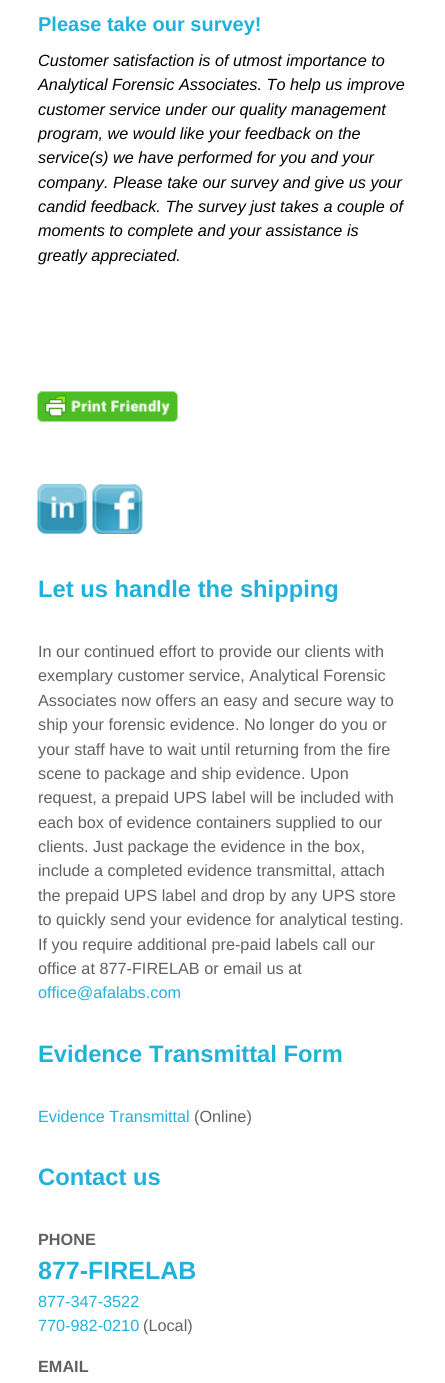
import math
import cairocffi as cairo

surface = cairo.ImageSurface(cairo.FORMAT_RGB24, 445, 1383)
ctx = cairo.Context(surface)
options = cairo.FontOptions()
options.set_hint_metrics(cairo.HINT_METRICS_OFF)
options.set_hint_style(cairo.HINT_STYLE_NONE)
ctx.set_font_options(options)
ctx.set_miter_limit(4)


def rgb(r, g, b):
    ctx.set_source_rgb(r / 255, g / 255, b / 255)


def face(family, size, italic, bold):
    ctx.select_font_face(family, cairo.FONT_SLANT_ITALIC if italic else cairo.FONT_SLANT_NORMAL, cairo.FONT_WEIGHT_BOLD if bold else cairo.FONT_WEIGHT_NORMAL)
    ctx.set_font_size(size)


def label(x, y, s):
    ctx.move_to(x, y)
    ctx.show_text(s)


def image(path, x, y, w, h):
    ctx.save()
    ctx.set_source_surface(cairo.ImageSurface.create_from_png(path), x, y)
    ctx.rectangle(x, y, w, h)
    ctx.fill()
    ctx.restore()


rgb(255, 255, 255)
ctx.paint()
face('Liberation Sans', 20, 0, 1)
rgb(33, 177, 218)
label(38, 31, 'Please take our survey!')
face('Liberation Sans', 16.25, 1, 0)
rgb(0, 0, 0)
label(38, 66, 'Customer satisfaction is of utmost importance to')
label(38, 90, 'Analytical Forensic Associates. To help us improve')
label(38, 115, 'customer service under our quality management')
label(38, 139, 'program, we would like your feedback on the')
label(38, 163, 'service(s) we have performed for you and your')
label(38, 188, 'company. Please take our survey and give us your')
label(38, 212, 'candid feedback. The survey just takes a couple of')
label(38, 236, 'moments to complete and your assistance is')
label(38, 261, 'greatly appreciated.')
image('image0.png', 37, 391, 141, 31)
image('image1.png', 37, 484, 51, 50)
image('image2.png', 92, 484, 51, 50)
face('Liberation Sans', 23.75, 0, 1)
rgb(33, 177, 218)
label(38, 597, 'Let us handle the shipping')
face('Liberation Sans', 16.25, 0, 0)
rgb(96, 97, 98)
label(38, 657, 'In our continued effort to provide our clients with')
label(38, 681, 'exemplary customer service, Analytical Forensic')
label(38, 706, 'Associates now offers an easy and secure way to')
label(38, 730, 'ship your forensic evidence. No longer do you or')
label(38, 755, 'your staff have to wait until returning from the fire')
label(38, 779, 'scene to package and ship evidence. Upon')
label(38, 803, 'request, a prepaid UPS label will be included with')
label(38, 828, 'each box of evidence containers supplied to our')
label(38, 852, 'clients. Just package the evidence in the box,')
label(38, 876, 'include a completed evidence transmittal, attach')
label(38, 901, 'the prepaid UPS label and drop by any UPS store')
label(38, 925, 'to quickly send your evidence for analytical testing.')
label(38, 950, 'If you require additional pre-paid labels call our')
label(38, 974, 'office at 877-FIRELAB or email us at')
rgb(33, 177, 218)
label(38, 998, 'office@afalabs.com')
face('Liberation Sans', 23.75, 0, 1)
label(38, 1062, 'Evidence Transmittal Form')
face('Liberation Sans', 16.25, 0, 0)
label(38, 1122, 'Evidence Transmittal')
rgb(96, 97, 98)
label(194, 1122, '(Online)')
face('Liberation Sans', 23.75, 0, 1)
rgb(33, 177, 218)
label(38, 1185, 'Contact us')
face('Liberation Sans', 16.25, 0, 1)
rgb(96, 97, 98)
label(38, 1245, 'PHONE')
face('Liberation Sans', 25, 0, 1)
rgb(33, 177, 218)
label(38, 1279, '877-FIRELAB')
face('Liberation Sans', 16.25, 0, 0)
label(38, 1307, '877-347-3522')
label(38, 1331, '770-982-0210')
rgb(96, 97, 98)
label(143, 1331, '(Local)')
face('Liberation Sans', 16.25, 0, 1)
label(38, 1372, 'EMAIL')
surface.write_to_png('render.png')
